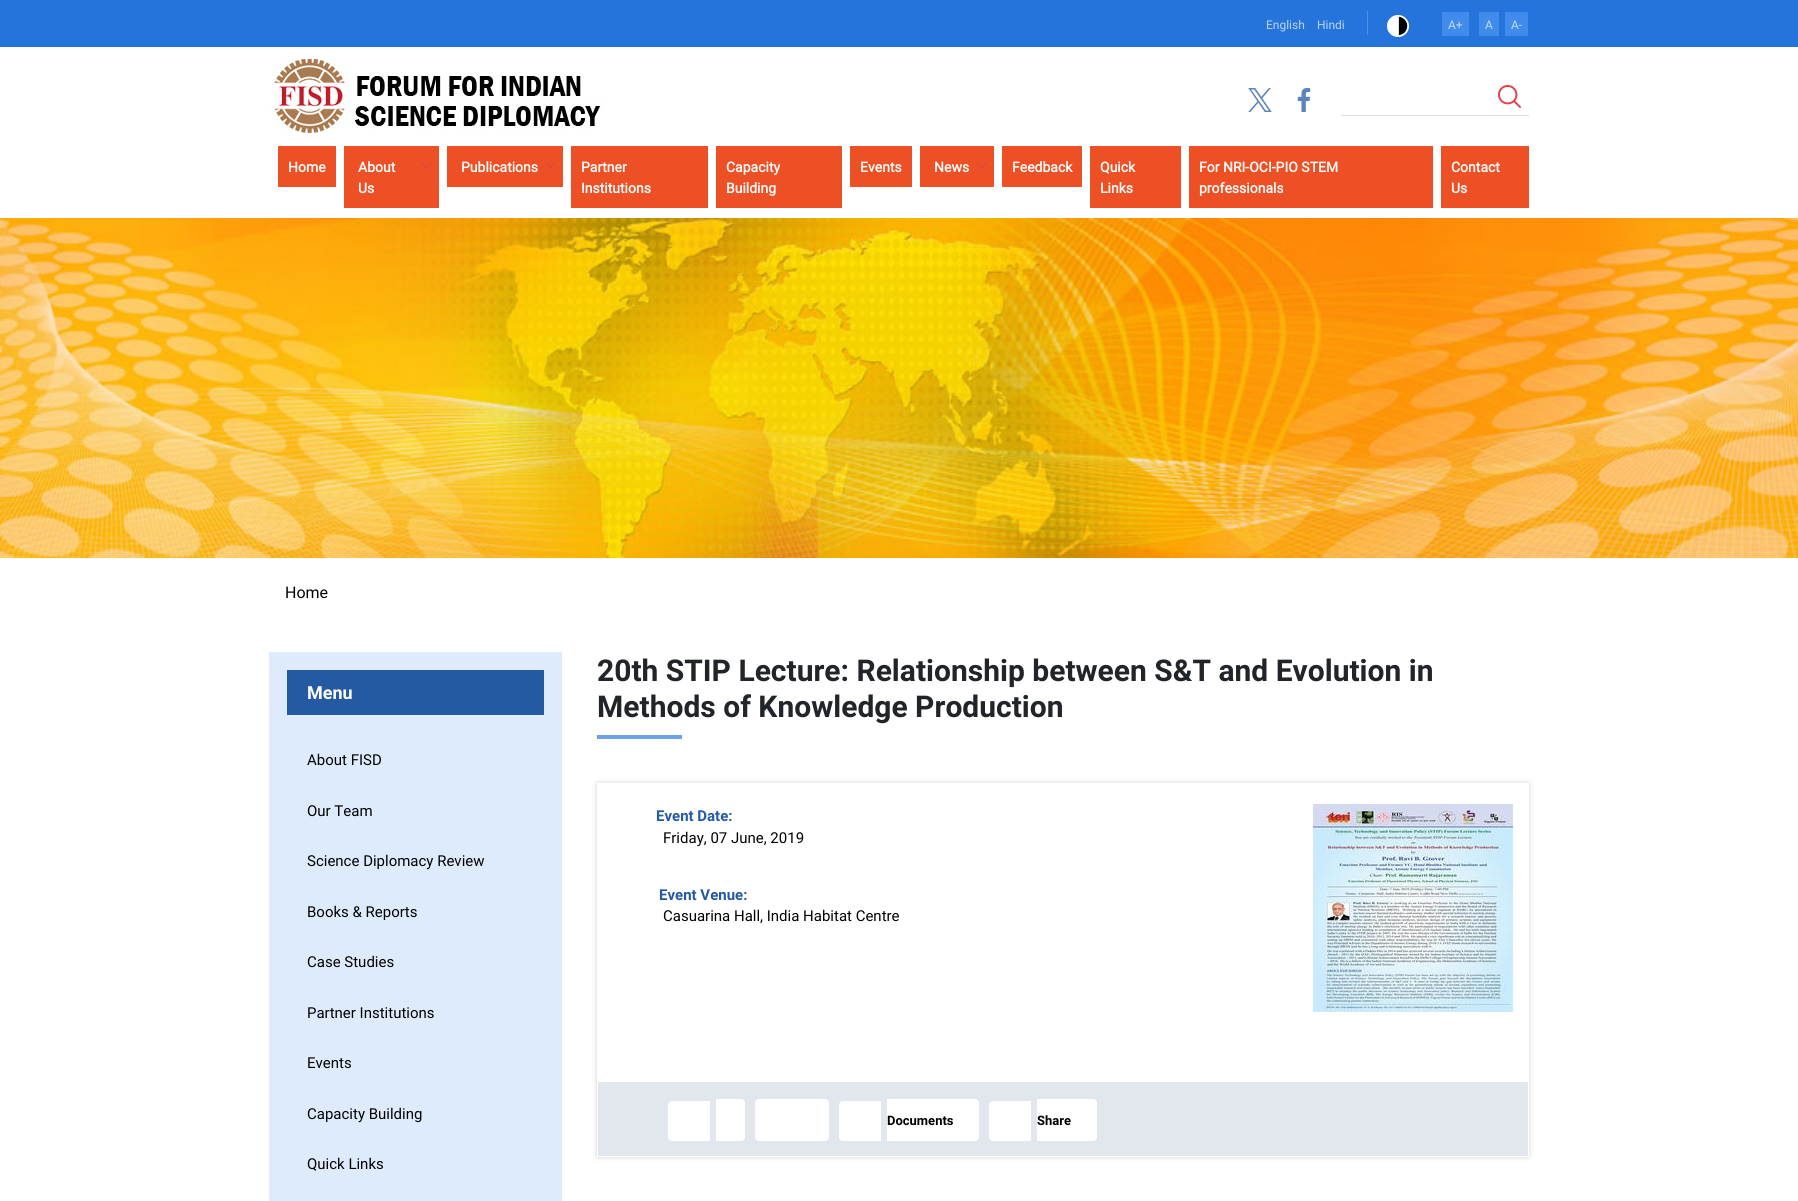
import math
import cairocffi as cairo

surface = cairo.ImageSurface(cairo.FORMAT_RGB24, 1798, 1201)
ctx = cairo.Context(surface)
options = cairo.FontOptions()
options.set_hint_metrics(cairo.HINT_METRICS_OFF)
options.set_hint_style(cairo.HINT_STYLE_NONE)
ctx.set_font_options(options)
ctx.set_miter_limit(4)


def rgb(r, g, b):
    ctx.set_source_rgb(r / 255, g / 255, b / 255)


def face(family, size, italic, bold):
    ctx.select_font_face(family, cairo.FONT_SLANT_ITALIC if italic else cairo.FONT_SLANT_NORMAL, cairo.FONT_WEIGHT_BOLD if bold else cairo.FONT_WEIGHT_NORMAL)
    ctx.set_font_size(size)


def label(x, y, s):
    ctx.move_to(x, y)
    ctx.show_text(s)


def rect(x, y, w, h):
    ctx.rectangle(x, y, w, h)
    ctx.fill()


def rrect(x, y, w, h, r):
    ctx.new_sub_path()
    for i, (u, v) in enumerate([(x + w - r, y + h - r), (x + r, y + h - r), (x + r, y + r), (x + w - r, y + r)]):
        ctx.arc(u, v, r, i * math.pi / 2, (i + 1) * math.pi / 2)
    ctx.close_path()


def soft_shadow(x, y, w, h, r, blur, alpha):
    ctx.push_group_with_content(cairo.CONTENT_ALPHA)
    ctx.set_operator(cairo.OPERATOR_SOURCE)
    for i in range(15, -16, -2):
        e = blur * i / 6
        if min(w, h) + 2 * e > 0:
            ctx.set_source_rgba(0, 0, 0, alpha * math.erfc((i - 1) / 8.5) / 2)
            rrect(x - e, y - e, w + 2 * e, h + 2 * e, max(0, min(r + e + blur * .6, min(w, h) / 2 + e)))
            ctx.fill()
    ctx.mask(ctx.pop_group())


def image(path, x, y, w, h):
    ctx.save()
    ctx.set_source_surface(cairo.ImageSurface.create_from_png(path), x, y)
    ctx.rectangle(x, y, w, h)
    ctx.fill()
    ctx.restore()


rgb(255, 255, 255)
ctx.paint()
rgb(36, 116, 219)
rect(0, 0, 1798, 47)
rgb(80, 144, 226)
rect(1367, 11, 1, 24)
face('Roboto', 12, 0, 0)
rgb(189, 213, 244)
label(1266, 29, 'English')
label(1317, 29, 'Hindi')
image('image0.png', 1387, 15, 22, 22)
rgb(63, 140, 237)
rect(1442, 12, 27, 24)
rgb(197, 221, 250)
label(1448, 29, 'A+')
rgb(63, 140, 237)
rect(1479, 12, 20, 24)
rgb(197, 221, 250)
label(1485, 29, 'A')
rgb(63, 140, 237)
rect(1505, 12, 23, 24)
rgb(197, 221, 250)
label(1511, 29, 'A-')
image('image1.png', 1248, 88, 24, 24)
image('image2.png', 1297, 88, 14, 24)
image('image3.png', 1498, 85, 23, 23)
rgb(221, 221, 221)
rect(1341, 115, 188, 1)
image('image4.png', 269, 59, 335, 80)
rgb(237, 80, 36)
rect(278, 146, 58, 41)
face('Roboto', 14, 0, 1)
rgb(255, 255, 255)
label(288, 172, 'Home')
rgb(237, 80, 36)
rect(344, 146, 95, 62)
rgb(255, 255, 255)
label(358, 172, 'About')
image('image5.png', 422, 163, 9, 5)
label(358, 193, 'Us')
rgb(237, 80, 36)
rect(447, 146, 116, 41)
rgb(255, 255, 255)
label(461, 172, 'Publications')
image('image5.png', 546, 163, 9, 5)
rgb(237, 80, 36)
rect(571, 146, 137, 62)
rgb(255, 255, 255)
label(581, 172, 'Partner')
label(581, 193, 'Institutions')
rgb(237, 80, 36)
rect(716, 146, 126, 62)
rgb(255, 255, 255)
label(726, 172, 'Capacity')
label(726, 193, 'Building')
rgb(237, 80, 36)
rect(850, 146, 62, 41)
rgb(255, 255, 255)
label(860, 172, 'Events')
rgb(237, 80, 36)
rect(920, 146, 74, 41)
rgb(255, 255, 255)
label(934, 172, 'News')
image('image5.png', 977, 163, 9, 5)
rgb(237, 80, 36)
rect(1002, 146, 80, 41)
rgb(255, 255, 255)
label(1012, 172, 'Feedback')
rgb(237, 80, 36)
rect(1090, 146, 91, 62)
rgb(255, 255, 255)
label(1100, 172, 'Quick')
label(1100, 193, 'Links')
rgb(237, 80, 36)
rect(1189, 146, 244, 62)
rgb(255, 255, 255)
label(1199, 172, 'For NRI-OCI-PIO STEM')
label(1199, 193, 'professionals')
rgb(237, 80, 36)
rect(1441, 146, 88, 62)
rgb(255, 255, 255)
label(1451, 172, 'Contact')
label(1451, 193, 'Us')
image('image6.png', 0, 218, 1798, 340)
face('Roboto', 16, 0, 0)
rgb(0, 0, 0)
label(285, 598, 'Home')
rgb(221, 235, 252)
rect(269, 652, 293, 549)
rgb(35, 90, 161)
rect(287, 670, 257, 45)
face('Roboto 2', 18, 0, 1)
rgb(255, 255, 255)
label(307, 699, 'Menu')
face('Roboto', 15, 0, 0)
rgb(0, 0, 0)
label(307, 765, 'About FISD')
label(307, 816, 'Our Team')
label(307, 866, 'Science Diplomacy Review')
label(307, 917, 'Books & Reports')
label(307, 967, 'Case Studies')
label(307, 1018, 'Partner Institutions')
label(307, 1068, 'Events')
label(307, 1119, 'Capacity Building')
label(307, 1169, 'Quick Links')
face('Roboto 2', 30, 0, 1)
rgb(33, 37, 41)
label(597, 681, '20th STIP Lecture: Relationship between S&T and Evolution in')
label(597, 717, 'Methods of Knowledge Production')
rgb(107, 163, 234)
rect(597, 735, 85, 4)
ctx.save()
ctx.set_fill_rule(cairo.FILL_RULE_EVEN_ODD)
ctx.new_path()
ctx.move_to(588, 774)
ctx.line_to(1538, 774)
ctx.line_to(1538, 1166)
ctx.line_to(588, 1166)
ctx.close_path()
ctx.move_to(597, 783)
ctx.line_to(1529, 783)
ctx.line_to(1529, 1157)
ctx.line_to(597, 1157)
ctx.close_path()
ctx.clip()
rgb(210, 210, 210)
soft_shadow(597, 783, 932, 374, 0, 2.5, 1)
ctx.restore()
face('Roboto 2', 15, 0, 1)
rgb(35, 90, 161)
label(656, 821, 'Event Date:')
face('Roboto', 15, 0, 0)
rgb(0, 0, 0)
label(663, 843, 'Friday, 07 June, 2019')
image('image7.png', 1313, 804, 200, 208)
face('Roboto 2', 15, 0, 1)
rgb(35, 90, 161)
label(659, 900, 'Event Venue:')
face('Roboto', 15, 0, 0)
rgb(0, 0, 0)
label(663, 921, 'Casuarina Hall, India Habitat Centre')
rgb(226, 231, 238)
rect(598, 1082, 930, 74)
rgb(255, 255, 255)
ctx.new_path()
ctx.move_to(672, 1101)
ctx.line_to(710, 1101)
ctx.line_to(710, 1141)
ctx.line_to(672, 1141)
ctx.curve_to(670, 1141, 668, 1139, 668, 1137)
ctx.line_to(668, 1105)
ctx.curve_to(668, 1103, 670, 1101, 672, 1101)
ctx.close_path()
ctx.fill()
ctx.new_path()
ctx.move_to(716, 1099)
ctx.line_to(741, 1099)
ctx.curve_to(743, 1099, 745, 1101, 745, 1103)
ctx.line_to(745, 1137)
ctx.curve_to(745, 1139, 743, 1141, 741, 1141)
ctx.line_to(716, 1141)
ctx.close_path()
ctx.fill()
rrect(755, 1099, 74, 42, 4)
ctx.fill()
ctx.new_path()
ctx.move_to(887, 1099)
ctx.line_to(975, 1099)
ctx.curve_to(977, 1099, 979, 1101, 979, 1103)
ctx.line_to(979, 1137)
ctx.curve_to(979, 1139, 977, 1141, 975, 1141)
ctx.line_to(887, 1141)
ctx.close_path()
ctx.fill()
face('Roboto 2', 13, 0, 1)
rgb(0, 0, 0)
label(887, 1125, 'Documents')
rgb(255, 255, 255)
ctx.new_path()
ctx.move_to(843, 1101)
ctx.line_to(881, 1101)
ctx.line_to(881, 1141)
ctx.line_to(843, 1141)
ctx.curve_to(841, 1141, 839, 1139, 839, 1137)
ctx.line_to(839, 1105)
ctx.curve_to(839, 1103, 841, 1101, 843, 1101)
ctx.close_path()
ctx.fill()
ctx.new_path()
ctx.move_to(1037, 1099)
ctx.line_to(1093, 1099)
ctx.curve_to(1095, 1099, 1097, 1101, 1097, 1103)
ctx.line_to(1097, 1137)
ctx.curve_to(1097, 1139, 1095, 1141, 1093, 1141)
ctx.line_to(1037, 1141)
ctx.close_path()
ctx.fill()
rgb(0, 0, 0)
label(1037, 1125, 'Share')
rgb(255, 255, 255)
ctx.new_path()
ctx.move_to(993, 1101)
ctx.line_to(1031, 1101)
ctx.line_to(1031, 1141)
ctx.line_to(993, 1141)
ctx.curve_to(991, 1141, 989, 1139, 989, 1137)
ctx.line_to(989, 1105)
ctx.curve_to(989, 1103, 991, 1101, 993, 1101)
ctx.close_path()
ctx.fill()
surface.write_to_png('render.png')
